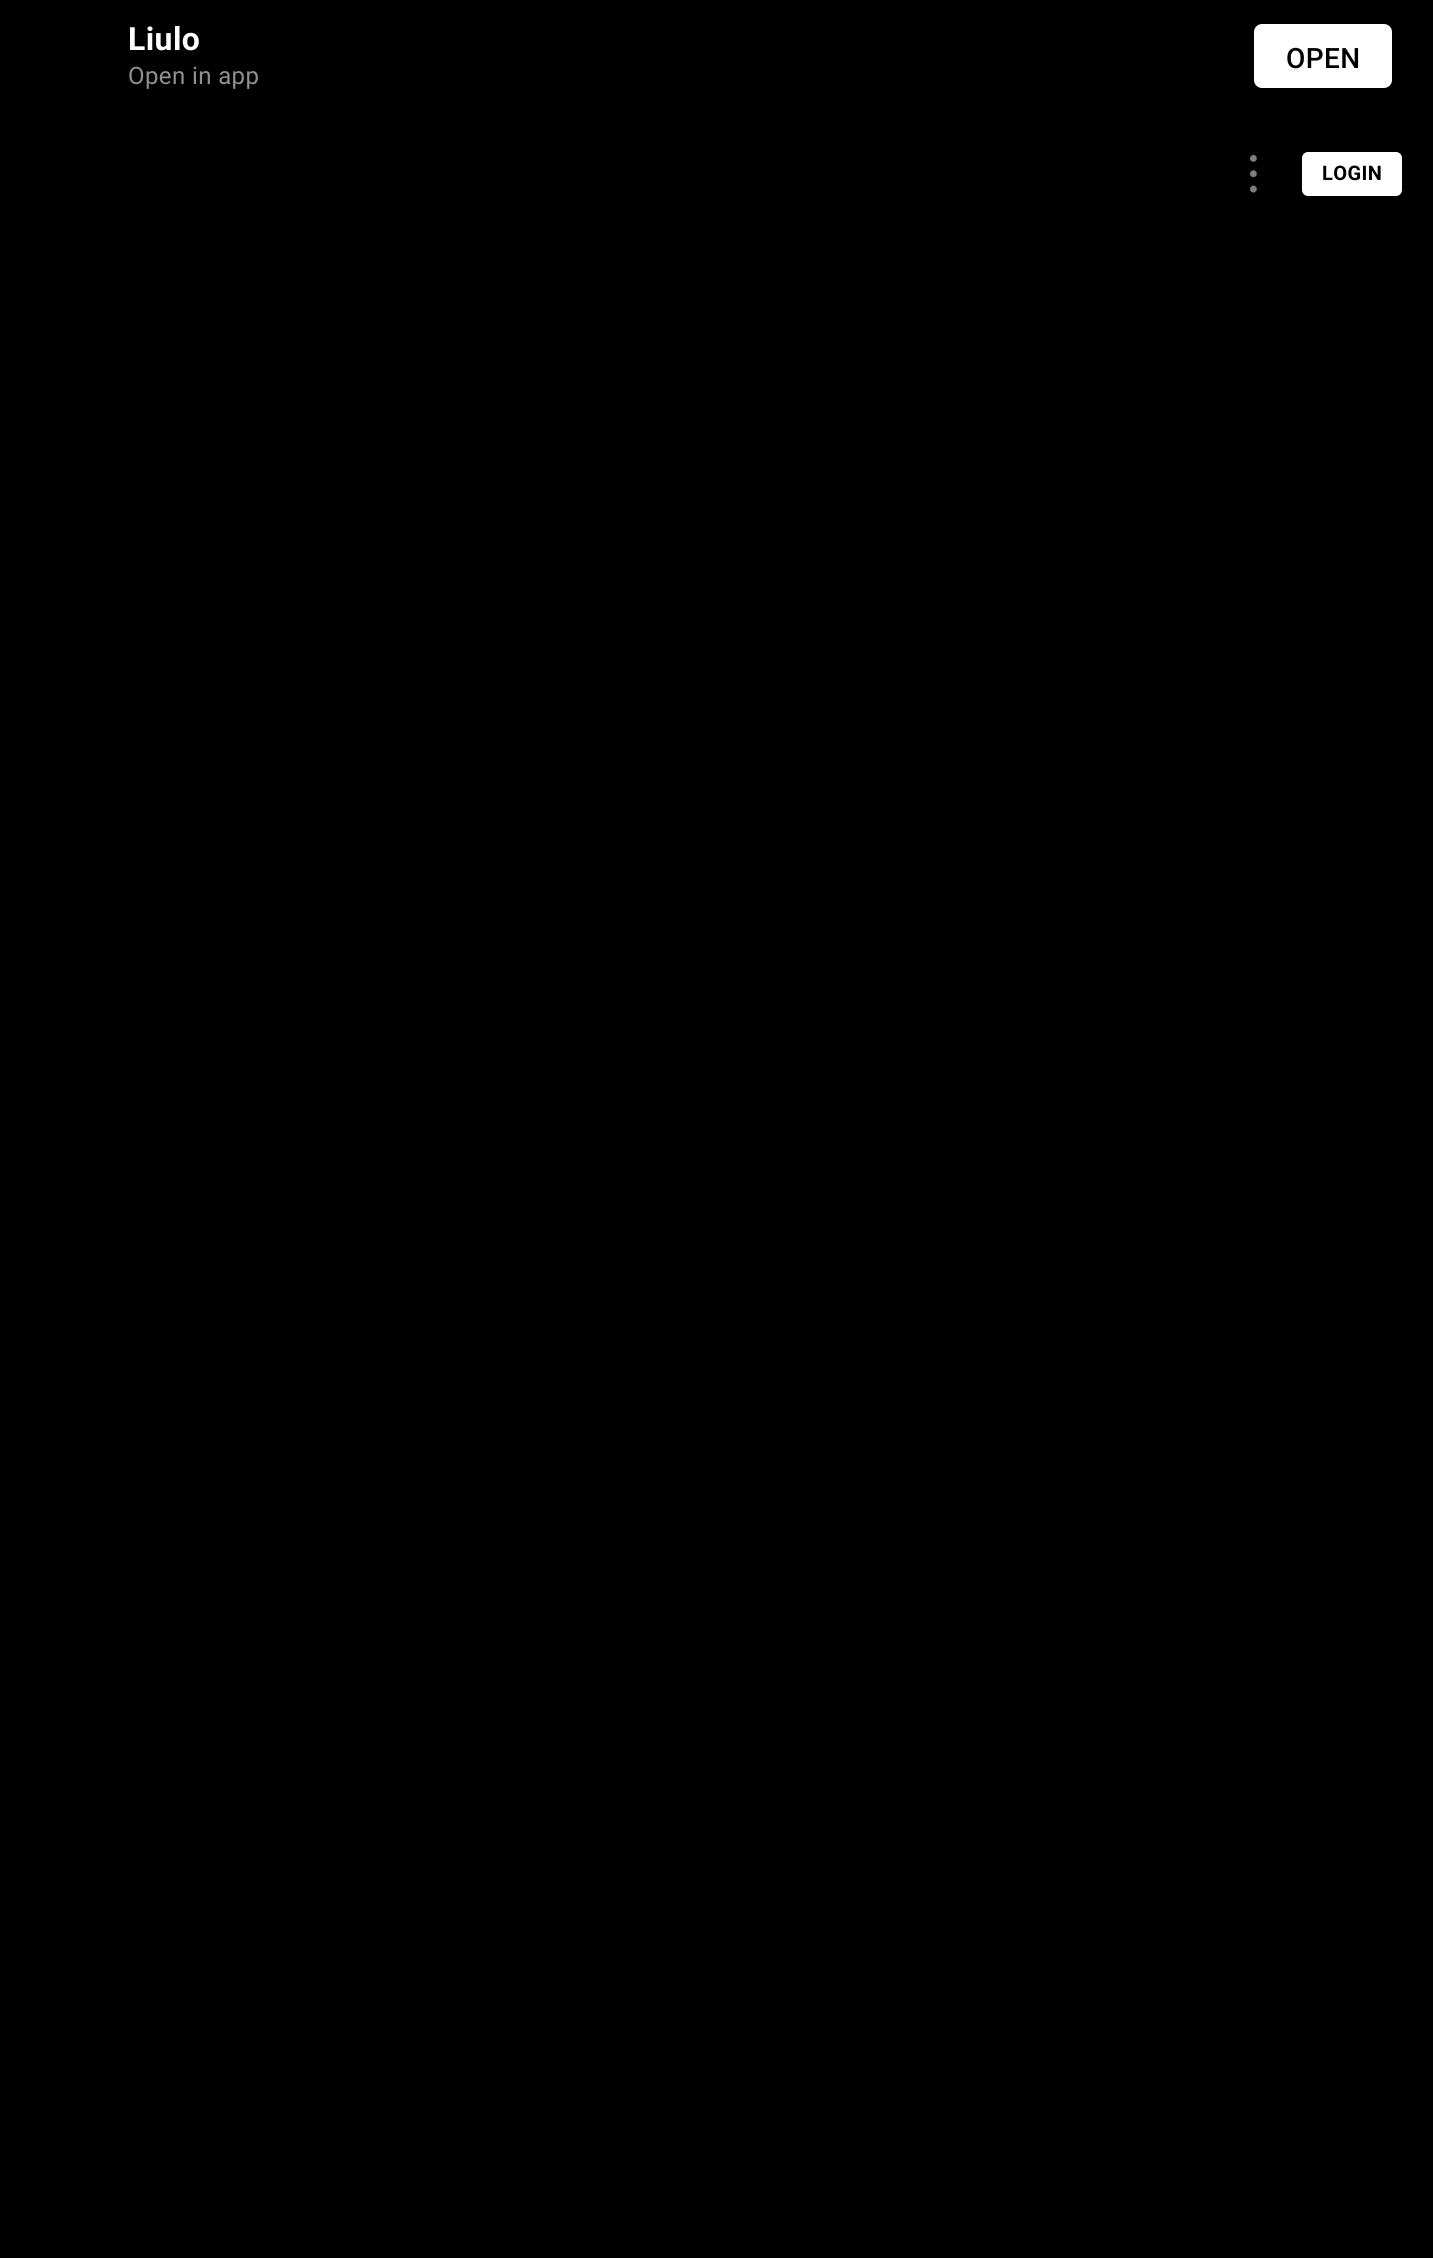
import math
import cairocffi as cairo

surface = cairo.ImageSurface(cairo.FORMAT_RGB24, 1433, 2258)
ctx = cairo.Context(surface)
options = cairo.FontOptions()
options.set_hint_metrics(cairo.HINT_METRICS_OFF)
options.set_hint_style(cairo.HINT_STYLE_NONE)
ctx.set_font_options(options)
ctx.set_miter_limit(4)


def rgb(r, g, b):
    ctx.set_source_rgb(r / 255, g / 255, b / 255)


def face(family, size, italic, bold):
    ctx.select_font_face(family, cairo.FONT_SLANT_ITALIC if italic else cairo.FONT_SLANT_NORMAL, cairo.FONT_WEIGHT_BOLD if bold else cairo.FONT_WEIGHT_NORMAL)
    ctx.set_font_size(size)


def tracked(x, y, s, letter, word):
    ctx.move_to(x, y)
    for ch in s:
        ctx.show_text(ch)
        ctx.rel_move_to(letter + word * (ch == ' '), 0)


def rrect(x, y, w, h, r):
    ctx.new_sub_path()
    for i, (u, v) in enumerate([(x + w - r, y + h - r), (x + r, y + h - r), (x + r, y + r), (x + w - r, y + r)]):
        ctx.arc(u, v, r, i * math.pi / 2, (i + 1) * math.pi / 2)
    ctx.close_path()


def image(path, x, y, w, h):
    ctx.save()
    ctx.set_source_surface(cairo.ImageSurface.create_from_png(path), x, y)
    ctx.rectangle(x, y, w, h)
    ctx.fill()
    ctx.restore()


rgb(0, 0, 0)
ctx.paint()
face('Roboto', 32, 0, 1)
rgb(255, 255, 255)
tracked(128, 50, 'Liulo', 0.4, 0)
face('Roboto', 24, 0, 0)
rgb(144, 144, 144)
tracked(128, 84, 'Open in app', 0.4, 0)
rgb(255, 255, 255)
rrect(1254, 24, 138, 64, 8)
ctx.fill()
face('Roboto Medium', 28, 0, 0)
rgb(0, 0, 0)
tracked(1286, 68, 'OPEN', 0.4, 0)
image('image0.png', 1249, 154, 8, 39)
rgb(255, 255, 255)
rrect(1302, 152, 100, 44, 6)
ctx.fill()
face('Roboto', 20, 0, 1)
rgb(0, 0, 0)
tracked(1322, 180, 'LOGIN', 0.4, 0)
surface.write_to_png('render.png')
